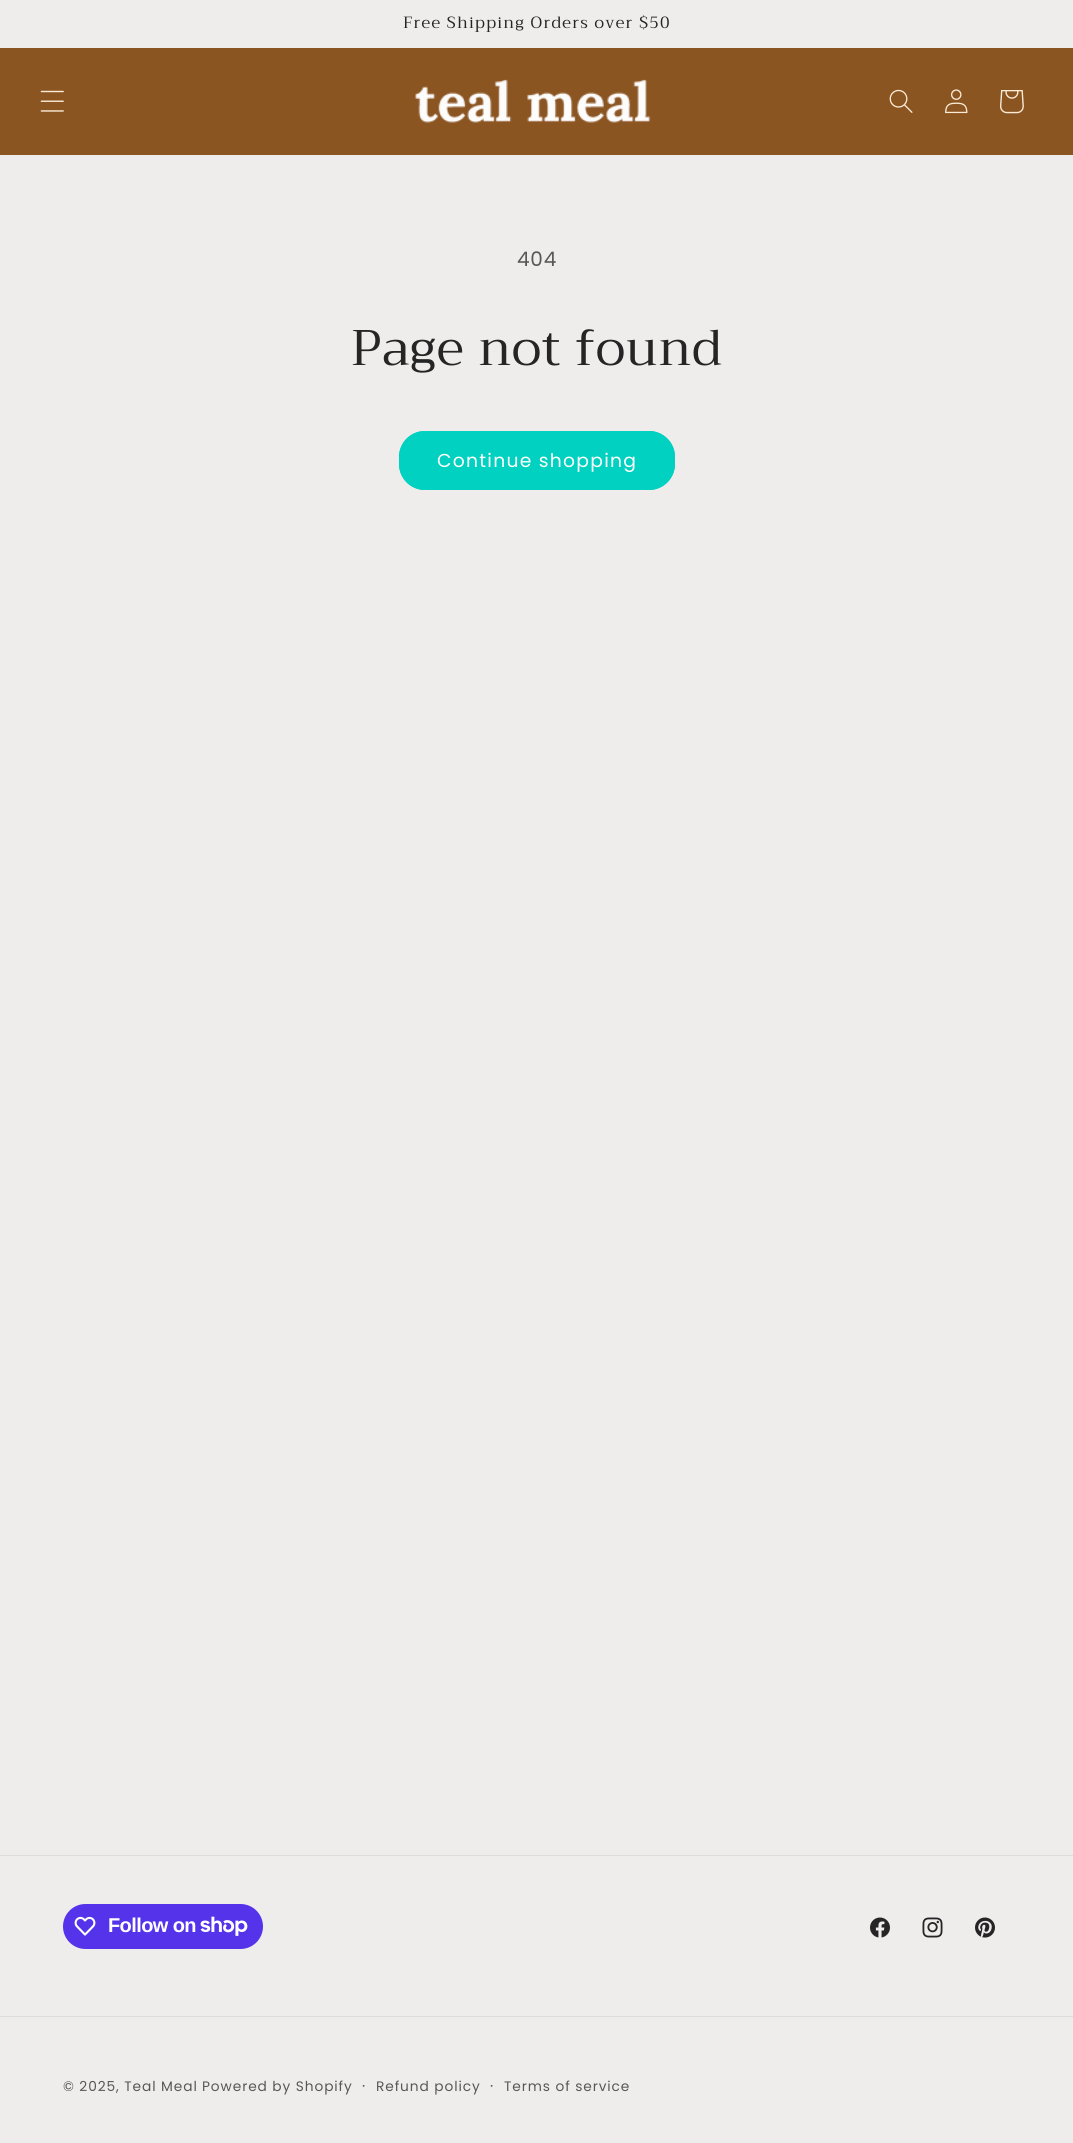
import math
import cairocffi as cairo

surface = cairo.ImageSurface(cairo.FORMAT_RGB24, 1073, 2143)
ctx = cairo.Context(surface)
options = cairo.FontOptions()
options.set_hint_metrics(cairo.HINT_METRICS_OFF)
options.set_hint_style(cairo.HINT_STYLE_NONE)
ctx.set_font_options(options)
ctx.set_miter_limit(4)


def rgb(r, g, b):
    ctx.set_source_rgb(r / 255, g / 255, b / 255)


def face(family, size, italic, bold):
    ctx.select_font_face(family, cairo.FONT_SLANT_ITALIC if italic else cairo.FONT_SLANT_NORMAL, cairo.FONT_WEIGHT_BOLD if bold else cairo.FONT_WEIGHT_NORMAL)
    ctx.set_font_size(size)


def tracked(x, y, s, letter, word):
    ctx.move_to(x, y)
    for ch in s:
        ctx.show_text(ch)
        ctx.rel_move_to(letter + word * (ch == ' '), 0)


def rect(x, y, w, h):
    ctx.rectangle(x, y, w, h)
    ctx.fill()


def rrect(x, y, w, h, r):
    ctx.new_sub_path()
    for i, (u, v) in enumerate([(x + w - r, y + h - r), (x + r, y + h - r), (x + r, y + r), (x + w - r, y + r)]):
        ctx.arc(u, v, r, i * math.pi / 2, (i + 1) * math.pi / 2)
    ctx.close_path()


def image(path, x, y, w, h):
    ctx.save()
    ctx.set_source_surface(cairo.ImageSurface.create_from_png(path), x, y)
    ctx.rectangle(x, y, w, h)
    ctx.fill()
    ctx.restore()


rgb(239, 236, 236)
ctx.paint()
face('Trirong', 16.25, 0, 0)
rgb(37, 37, 37)
tracked(403, 28, 'Free Shipping Orders over $50', 1.25, 0)
rgb(139, 85, 34)
rect(0, 48, 1073, 107)
image('image0.png', 40, 90, 24, 22)
image('image1.png', 414, 79, 237, 44)
image('image2.png', 889, 89, 24, 24)
image('image3.png', 945, 89, 23, 25)
image('image4.png', 1000, 90, 24, 24)
face('Poppins', 20, 0, 0)
rgb(88, 87, 87)
tracked(517, 266, '404', 0.75, 0)
face('Trirong', 50, 0, 0)
rgb(37, 37, 37)
tracked(351, 365, 'Page not found', 0.75, 0)
rgb(0, 209, 192)
rrect(399, 431, 276, 59, 26)
ctx.fill()
rrect(399.5, 431.5, 275, 58, 25.5)
ctx.set_line_width(1)
ctx.stroke()
face('Poppins', 18.75, 0, 0)
rgb(255, 255, 255)
tracked(437, 467, 'Continue shopping', 1.25, 0)
rgb(223, 220, 220)
rect(0, 1855, 1073, 1)
rgb(84, 51, 235)
rrect(63, 1904, 200, 45, 22.5)
ctx.fill()
image('image5.png', 74, 1916, 22, 20)
face('Liberation Sans', 20, 0, 1)
rgb(255, 255, 255)
tracked(108, 1932, 'Follow on', -0.6, 0)
image('image6.png', 200, 1916, 48, 20)
image('image7.png', 870, 1917, 20, 21)
image('image8.png', 922, 1917, 21, 21)
image('image9.png', 975, 1917, 20, 21)
rgb(223, 220, 220)
rect(0, 2016, 1073, 1)
face('Poppins', 13.75, 0, 0)
rgb(88, 87, 87)
tracked(63, 2091, '© 2025, Teal Meal', 0.9, 0)
tracked(202, 2091, 'Powered by Shopify', 0.9, 0)
face('Poppins', 15, 0, 0)
tracked(362, 2091, '·', 0.9, 0)
face('Poppins', 13.75, 0, 0)
tracked(376, 2091, 'Refund policy', 0.9, 0)
face('Poppins', 15, 0, 0)
tracked(490, 2091, '·', 0.9, 0)
face('Poppins', 13.75, 0, 0)
tracked(504, 2091, 'Terms of service', 0.9, 0)
surface.write_to_png('render.png')
